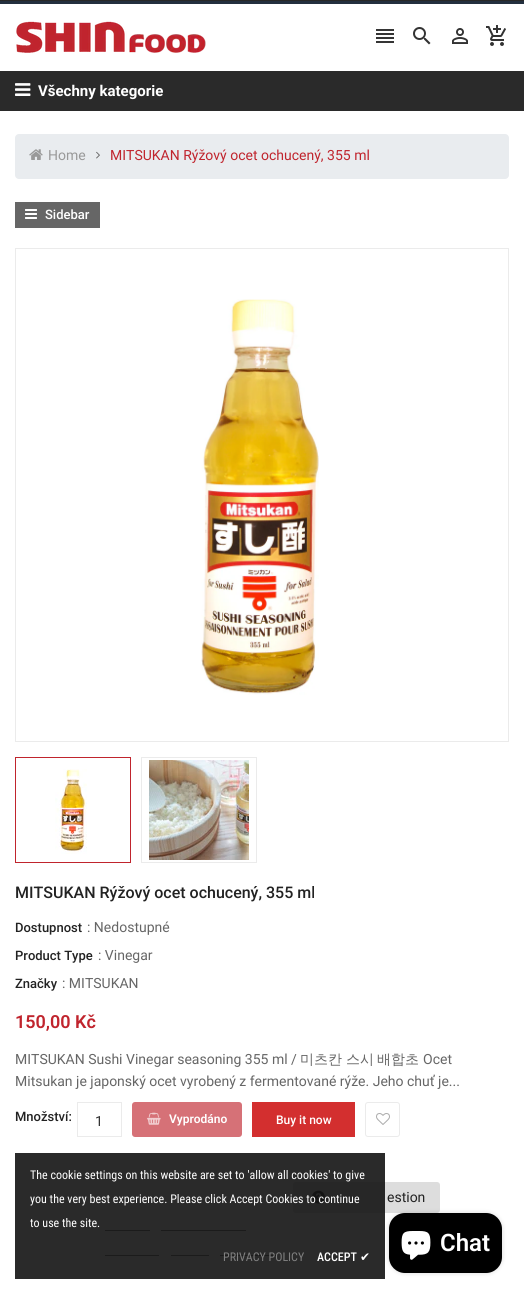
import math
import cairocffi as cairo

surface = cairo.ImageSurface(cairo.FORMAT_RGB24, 524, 1294)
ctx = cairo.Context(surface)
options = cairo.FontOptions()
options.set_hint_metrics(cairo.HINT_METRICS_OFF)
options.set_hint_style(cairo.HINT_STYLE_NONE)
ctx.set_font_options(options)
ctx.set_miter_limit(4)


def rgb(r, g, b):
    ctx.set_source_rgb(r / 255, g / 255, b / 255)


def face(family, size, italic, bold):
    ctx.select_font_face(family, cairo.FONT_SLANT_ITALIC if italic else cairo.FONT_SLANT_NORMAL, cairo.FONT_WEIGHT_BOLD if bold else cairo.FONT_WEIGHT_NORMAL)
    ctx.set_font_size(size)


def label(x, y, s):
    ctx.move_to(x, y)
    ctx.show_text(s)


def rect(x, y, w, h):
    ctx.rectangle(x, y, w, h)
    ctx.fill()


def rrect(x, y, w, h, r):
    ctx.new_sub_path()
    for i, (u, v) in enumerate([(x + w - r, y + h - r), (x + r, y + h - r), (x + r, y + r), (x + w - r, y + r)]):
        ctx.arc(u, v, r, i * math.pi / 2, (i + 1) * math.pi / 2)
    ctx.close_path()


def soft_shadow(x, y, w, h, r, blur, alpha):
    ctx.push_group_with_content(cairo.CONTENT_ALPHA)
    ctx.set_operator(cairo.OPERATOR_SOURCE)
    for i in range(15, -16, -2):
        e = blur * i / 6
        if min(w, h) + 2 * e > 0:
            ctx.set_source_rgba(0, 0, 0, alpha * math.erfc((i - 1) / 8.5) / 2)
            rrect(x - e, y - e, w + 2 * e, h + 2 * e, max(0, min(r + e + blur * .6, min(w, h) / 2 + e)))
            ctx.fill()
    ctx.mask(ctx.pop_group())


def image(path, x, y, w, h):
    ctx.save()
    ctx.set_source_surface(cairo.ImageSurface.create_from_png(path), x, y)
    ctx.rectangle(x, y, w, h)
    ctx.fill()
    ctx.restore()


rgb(255, 255, 255)
ctx.paint()
rgb(42, 42, 42)
rect(0, 0, 524, 1)
ctx.save()
ctx.rectangle(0, 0, 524, 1)
ctx.clip()
rgb(0, 0, 0)
soft_shadow(0, 1, 524, 70, 0, 2.5, 0.2)
ctx.restore()
rgb(35, 47, 62)
rect(0, 1, 524, 3)
image('image0.png', 16, 21, 190, 32)
image('image1.png', 376, 29, 18, 14)
image('image2.png', 413, 27, 18, 18)
image('image3.png', 452, 28, 16, 16)
image('image4.png', 486, 25, 20, 21)
rgb(42, 42, 42)
rect(0, 71, 524, 40)
image('image5.png', 15, 83, 16, 13)
face('Roboto', 15, 0, 1)
rgb(255, 255, 255)
label(38, 96, 'Všechny kategorie')
rgb(233, 236, 239)
rrect(15, 134, 494, 45, 4)
ctx.fill()
image('image6.png', 29, 149, 14, 11)
face('Roboto', 14, 0, 0)
rgb(153, 153, 153)
label(48, 160, 'Home')
image('image7.png', 96, 151, 4, 8)
rgb(192, 36, 45)
label(110, 160, 'MITSUKAN Rýžový ocet ochucený, 355 ml')
rgb(102, 102, 102)
rect(15, 202, 85, 26)
image('image8.png', 25, 209, 12, 10)
face('Roboto Medium', 13, 0, 0)
rgb(255, 255, 255)
label(45, 219, 'Sidebar')
ctx.rectangle(15.5, 248.5, 493, 493)
rgb(235, 235, 235)
ctx.set_line_width(1)
ctx.stroke()
image('image9.png', 201, 299, 118, 396)
ctx.rectangle(15.5, 757.5, 115, 105)
rgb(192, 36, 45)
ctx.stroke()
image('image10.png', 55, 769, 32, 85)
ctx.rectangle(141.5, 757.5, 115, 105)
rgb(235, 235, 235)
ctx.stroke()
image('image11.png', 149, 760, 100, 100)
face('Roboto Medium', 16, 0, 0)
rgb(34, 34, 34)
label(15, 898, 'MITSUKAN Rýžový ocet ochucený, 355 ml')
face('Roboto Medium', 13, 0, 0)
label(15, 932, 'Dostupnost')
face('Roboto', 14, 0, 0)
rgb(102, 102, 102)
label(87, 932, ': Nedostupné')
face('Roboto Medium', 13, 0, 0)
rgb(34, 34, 34)
label(15, 960, 'Product Type')
face('Roboto', 14, 0, 0)
rgb(102, 102, 102)
label(98, 960, ': Vinegar')
face('Roboto Medium', 13, 0, 0)
rgb(34, 34, 34)
label(15, 988, 'Značky')
face('Roboto', 14, 0, 0)
rgb(102, 102, 102)
label(62, 988, ': MITSUKAN')
face('Roboto SemiBold', 18, 0, 0)
rgb(192, 36, 45)
label(15, 1028, '150,00 Kč')
face('Roboto', 14, 0, 0)
rgb(102, 102, 102)
label(15, 1064, 'MITSUKAN Sushi Vinegar seasoning 355 ml /')
face('WenQuanYi Zen Hei Medium', 14, 0, 0)
label(300, 1064, '미츠칸')
label(346, 1064, '스시')
label(377, 1064, '배합초')
face('Roboto', 14, 0, 0)
label(423, 1064, 'Ocet')
label(15, 1086, 'Mitsukan je japonský ocet vyrobený z fermentované rýže. Jeho chuť je...')
face('Roboto Medium', 13, 0, 0)
rgb(34, 34, 34)
label(15, 1121, 'Množství:')
ctx.rectangle(77.5, 1102.5, 44, 34)
rgb(235, 235, 235)
ctx.stroke()
face('Roboto', 14, 0, 0)
rgb(50, 50, 50)
label(95, 1126, '1')
rgb(214, 113, 119)
rrect(132, 1102, 110, 35, 3)
ctx.fill()
image('image12.png', 147, 1112, 14, 13)
face('Roboto SemiBold', 12, 0, 0)
rgb(255, 255, 255)
label(169, 1123, 'Vyprodáno')
rgb(211, 47, 47)
rect(252, 1102, 103, 35)
face('Roboto Medium', 12, 0, 0)
rgb(255, 255, 255)
label(276, 1124, 'Buy it now')
rrect(365.5, 1102.5, 34, 34, 2.5)
rgb(235, 235, 235)
ctx.stroke()
image('image13.png', 376, 1113, 14, 12)
rgb(221, 221, 221)
rrect(293, 1182, 147, 31, 3)
ctx.fill()
image('image14.png', 312, 1190, 13, 14)
face('Roboto', 14, 0, 0)
rgb(34, 34, 34)
label(387, 1202, 'estion')
rgb(102, 102, 102)
rect(105, 1230, 45, 1)
rect(161, 1230, 85, 1)
rect(105, 1255, 54, 1)
rect(171, 1255, 38, 1)
rect(220, 1255, 57, 1)
ctx.set_source_rgba(0.078, 0.078, 0.078, 0.9)
rect(15, 1153, 370, 126)
face('Roboto Condensed', 12, 0, 0)
rgb(255, 255, 255)
label(30, 1179, 'The cookie settings on this website are set to \'allow all cookies\' to give')
label(30, 1203, 'you the very best experience. Please click Accept Cookies to continue')
label(30, 1227, 'to use the site.')
rgb(129, 129, 129)
label(223, 1261, 'PRIVACY POLICY')
face('Roboto Condensed Medium', 12, 0, 0)
rgb(255, 255, 255)
label(317, 1261, 'ACCEPT')
face('DejaVu Sans', 12, 0, 0)
label(360, 1261, '✔')
rgb(0, 0, 0)
soft_shadow(389, 1213, 113, 60, 16, 2.5, 0.15)
rgb(0, 0, 0)
rrect(389, 1213, 113, 60, 16)
ctx.fill()
image('image15.png', 401, 1231, 30, 29)
face('Roboto SemiBold', 24, 0, 0)
rgb(255, 255, 255)
label(440, 1251, 'Chat')
surface.write_to_png('render.png')
